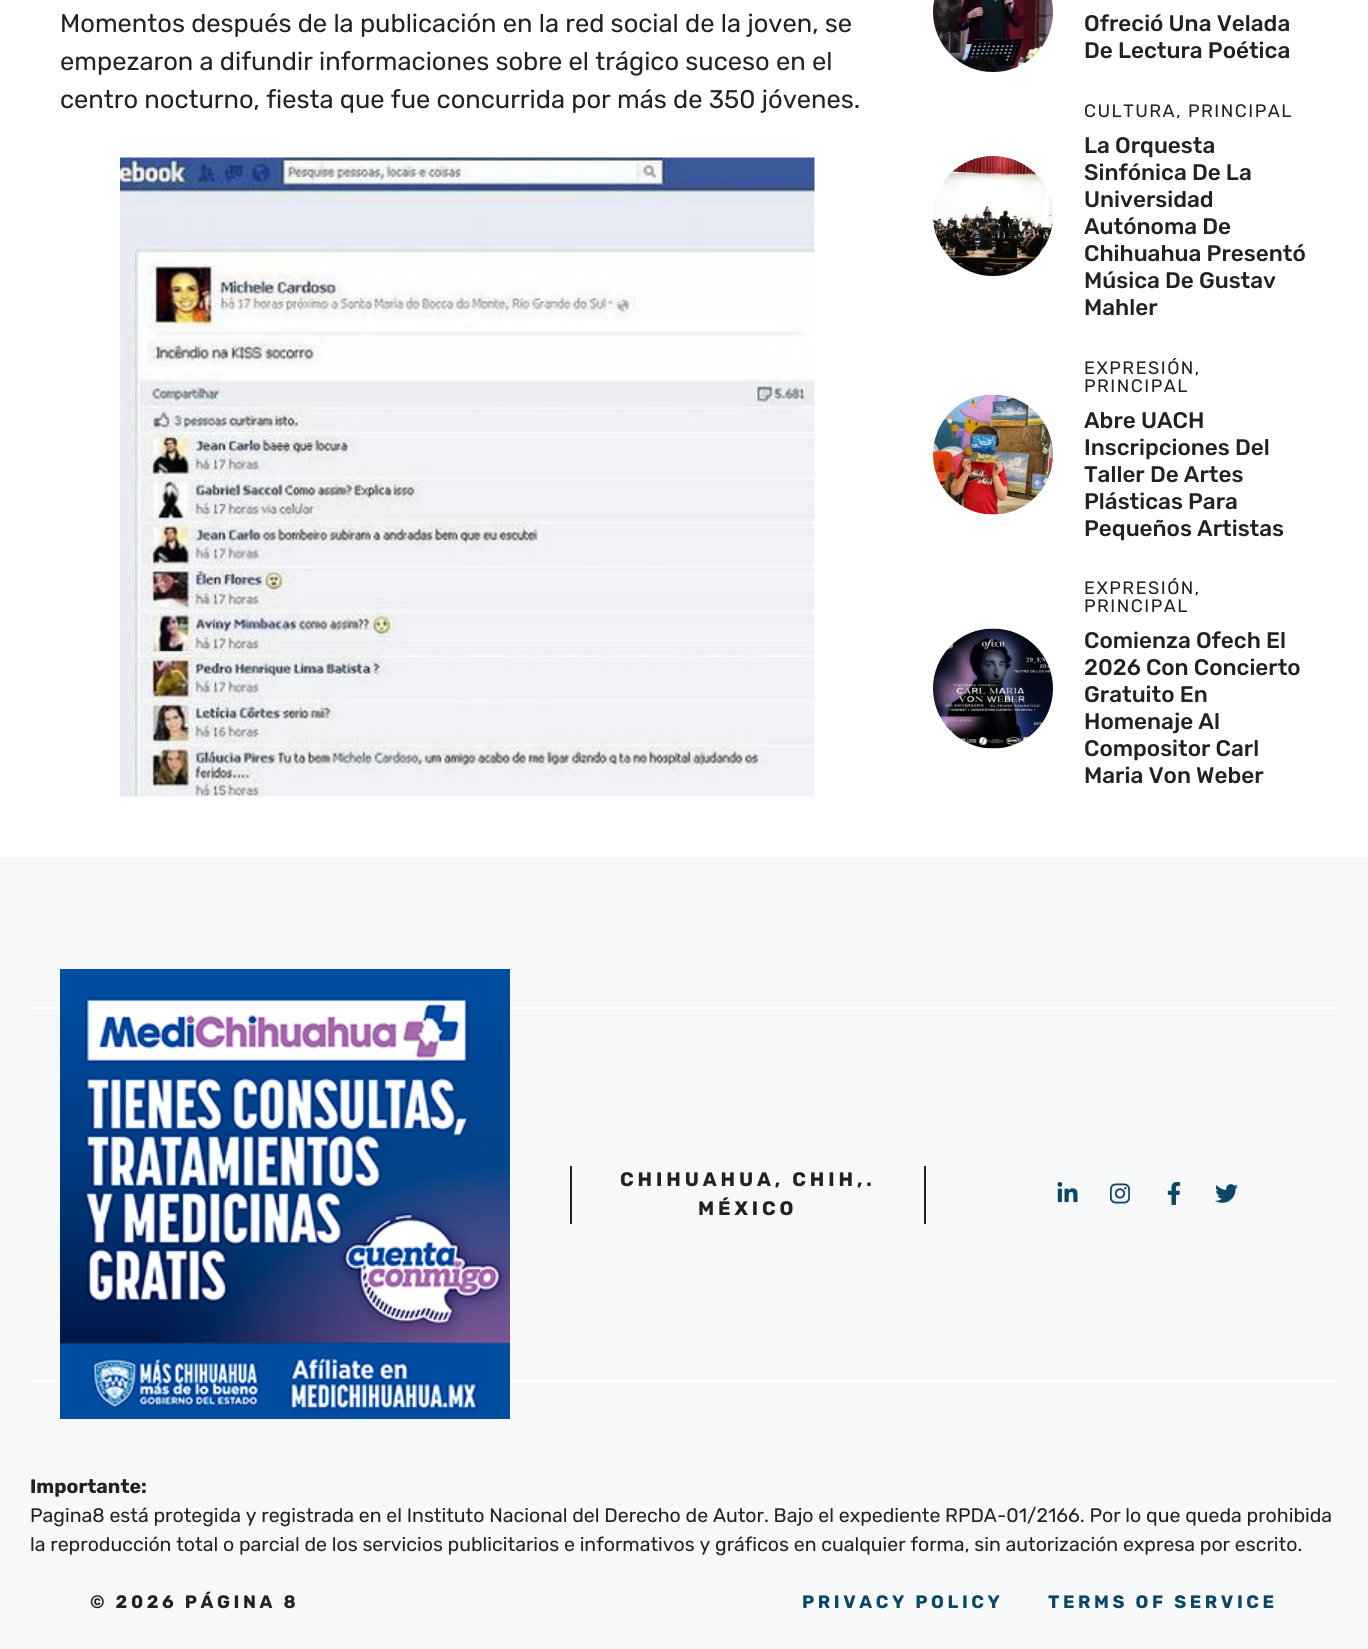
import math
import cairocffi as cairo

surface = cairo.ImageSurface(cairo.FORMAT_RGB24, 1368, 1649)
ctx = cairo.Context(surface)
options = cairo.FontOptions()
options.set_hint_metrics(cairo.HINT_METRICS_OFF)
options.set_hint_style(cairo.HINT_STYLE_NONE)
ctx.set_font_options(options)
ctx.set_miter_limit(4)


def rgb(r, g, b):
    ctx.set_source_rgb(r / 255, g / 255, b / 255)


def face(family, size, italic, bold):
    ctx.select_font_face(family, cairo.FONT_SLANT_ITALIC if italic else cairo.FONT_SLANT_NORMAL, cairo.FONT_WEIGHT_BOLD if bold else cairo.FONT_WEIGHT_NORMAL)
    ctx.set_font_size(size)


def label(x, y, s):
    ctx.move_to(x, y)
    ctx.show_text(s)


def tracked(x, y, s, letter, word):
    ctx.move_to(x, y)
    for ch in s:
        ctx.show_text(ch)
        ctx.rel_move_to(letter + word * (ch == ' '), 0)


def rect(x, y, w, h):
    ctx.rectangle(x, y, w, h)
    ctx.fill()


def image(path, x, y, w, h):
    ctx.save()
    ctx.set_source_surface(cairo.ImageSurface.create_from_png(path), x, y)
    ctx.rectangle(x, y, w, h)
    ctx.fill()
    ctx.restore()


rgb(255, 255, 255)
ctx.paint()
face('Rubik', 25.5, 0, 0)
rgb(34, 34, 34)
label(60, 32, 'Momentos después de la publicación en la red social de la joven, se')
label(60, 70, 'empezaron a difundir informaciones sobre el trágico suceso en el')
label(60, 108, 'centro nocturno, fiesta que fue concurrida por más de 350 jóvenes.')
image('image0.png', 120, 157, 695, 640)
image('image1.png', 933, 0, 120, 72)
face('Rubik Medium', 22.5, 0, 0)
label(1084, 31, 'Ofreció Una Velada')
label(1084, 58, 'De Lectura Poética')
image('image2.png', 933, 156, 120, 120)
face('Rubik', 18, 0, 0)
tracked(1084, 117, 'CULTURA, PRINCIPAL', 1.5, 0)
face('Rubik Medium', 22.5, 0, 0)
label(1084, 153, 'La Orquesta')
label(1084, 180, 'Sinfónica De La')
label(1084, 207, 'Universidad')
label(1084, 234, 'Autónoma De')
label(1084, 261, 'Chihuahua Presentó')
label(1084, 288, 'Música De Gustav')
label(1084, 315, 'Mahler')
image('image3.png', 933, 394, 120, 121)
face('Rubik', 18, 0, 0)
tracked(1084, 374, 'EXPRESIÓN,', 1.5, 0)
tracked(1084, 392, 'PRINCIPAL', 1.5, 0)
face('Rubik Medium', 22.5, 0, 0)
label(1084, 428, 'Abre UACH')
label(1084, 455, 'Inscripciones Del')
label(1084, 482, 'Taller De Artes')
label(1084, 509, 'Plásticas Para')
label(1084, 536, 'Pequeños Artistas')
image('image4.png', 933, 628, 120, 121)
face('Rubik', 18, 0, 0)
tracked(1084, 594, 'EXPRESIÓN,', 1.5, 0)
tracked(1084, 612, 'PRINCIPAL', 1.5, 0)
face('Rubik Medium', 22.5, 0, 0)
label(1084, 648, 'Comienza Ofech El')
label(1084, 675, '2026 Con Concierto')
label(1084, 702, 'Gratuito En')
label(1084, 729, 'Homenaje Al')
label(1084, 756, 'Compositor Carl')
label(1084, 783, 'Maria Von Weber')
rgb(247, 248, 249)
rect(0, 857, 1368, 792)
rgb(255, 255, 255)
rect(30, 1007, 1308, 2)
rect(30, 1380, 1308, 2)
image('image5.png', 60, 969, 450, 450)
rgb(34, 34, 34)
rect(924, 1166, 2, 58)
rect(570, 1166, 2, 58)
face('Rubik', 19.5, 0, 1)
tracked(620, 1186, 'CHIHUAHUA, CHIH,.', 3.9, 0)
tracked(698, 1215, 'MÉXICO', 3.9, 0)
image('image6.png', 1057, 1182, 21, 21)
image('image7.png', 1110, 1183, 20, 21)
image('image8.png', 1167, 1182, 14, 23)
image('image9.png', 1215, 1184, 23, 19)
label(30, 1493, 'Importante:')
face('Rubik', 19.5, 0, 0)
label(30, 1522, 'Pagina8 está protegida y registrada en el Instituto Nacional del Derecho de Autor. Bajo el expediente RPDA-01/2166. Por lo que queda prohibida')
label(30, 1551, 'la reproducción total o parcial de los servicios publicitarios e informativos y gráficos en cualquier forma, sin autorización expresa por escrito.')
face('Rubik', 18, 0, 1)
tracked(90, 1608, '© 2026 PÁGINA 8', 3.6, 0)
rgb(12, 71, 103)
tracked(802, 1608, 'PRIVACY POLICY', 3.6, 0)
tracked(1048, 1608, 'TERMS OF SERVICE', 3.6, 0)
surface.write_to_png('render.png')
